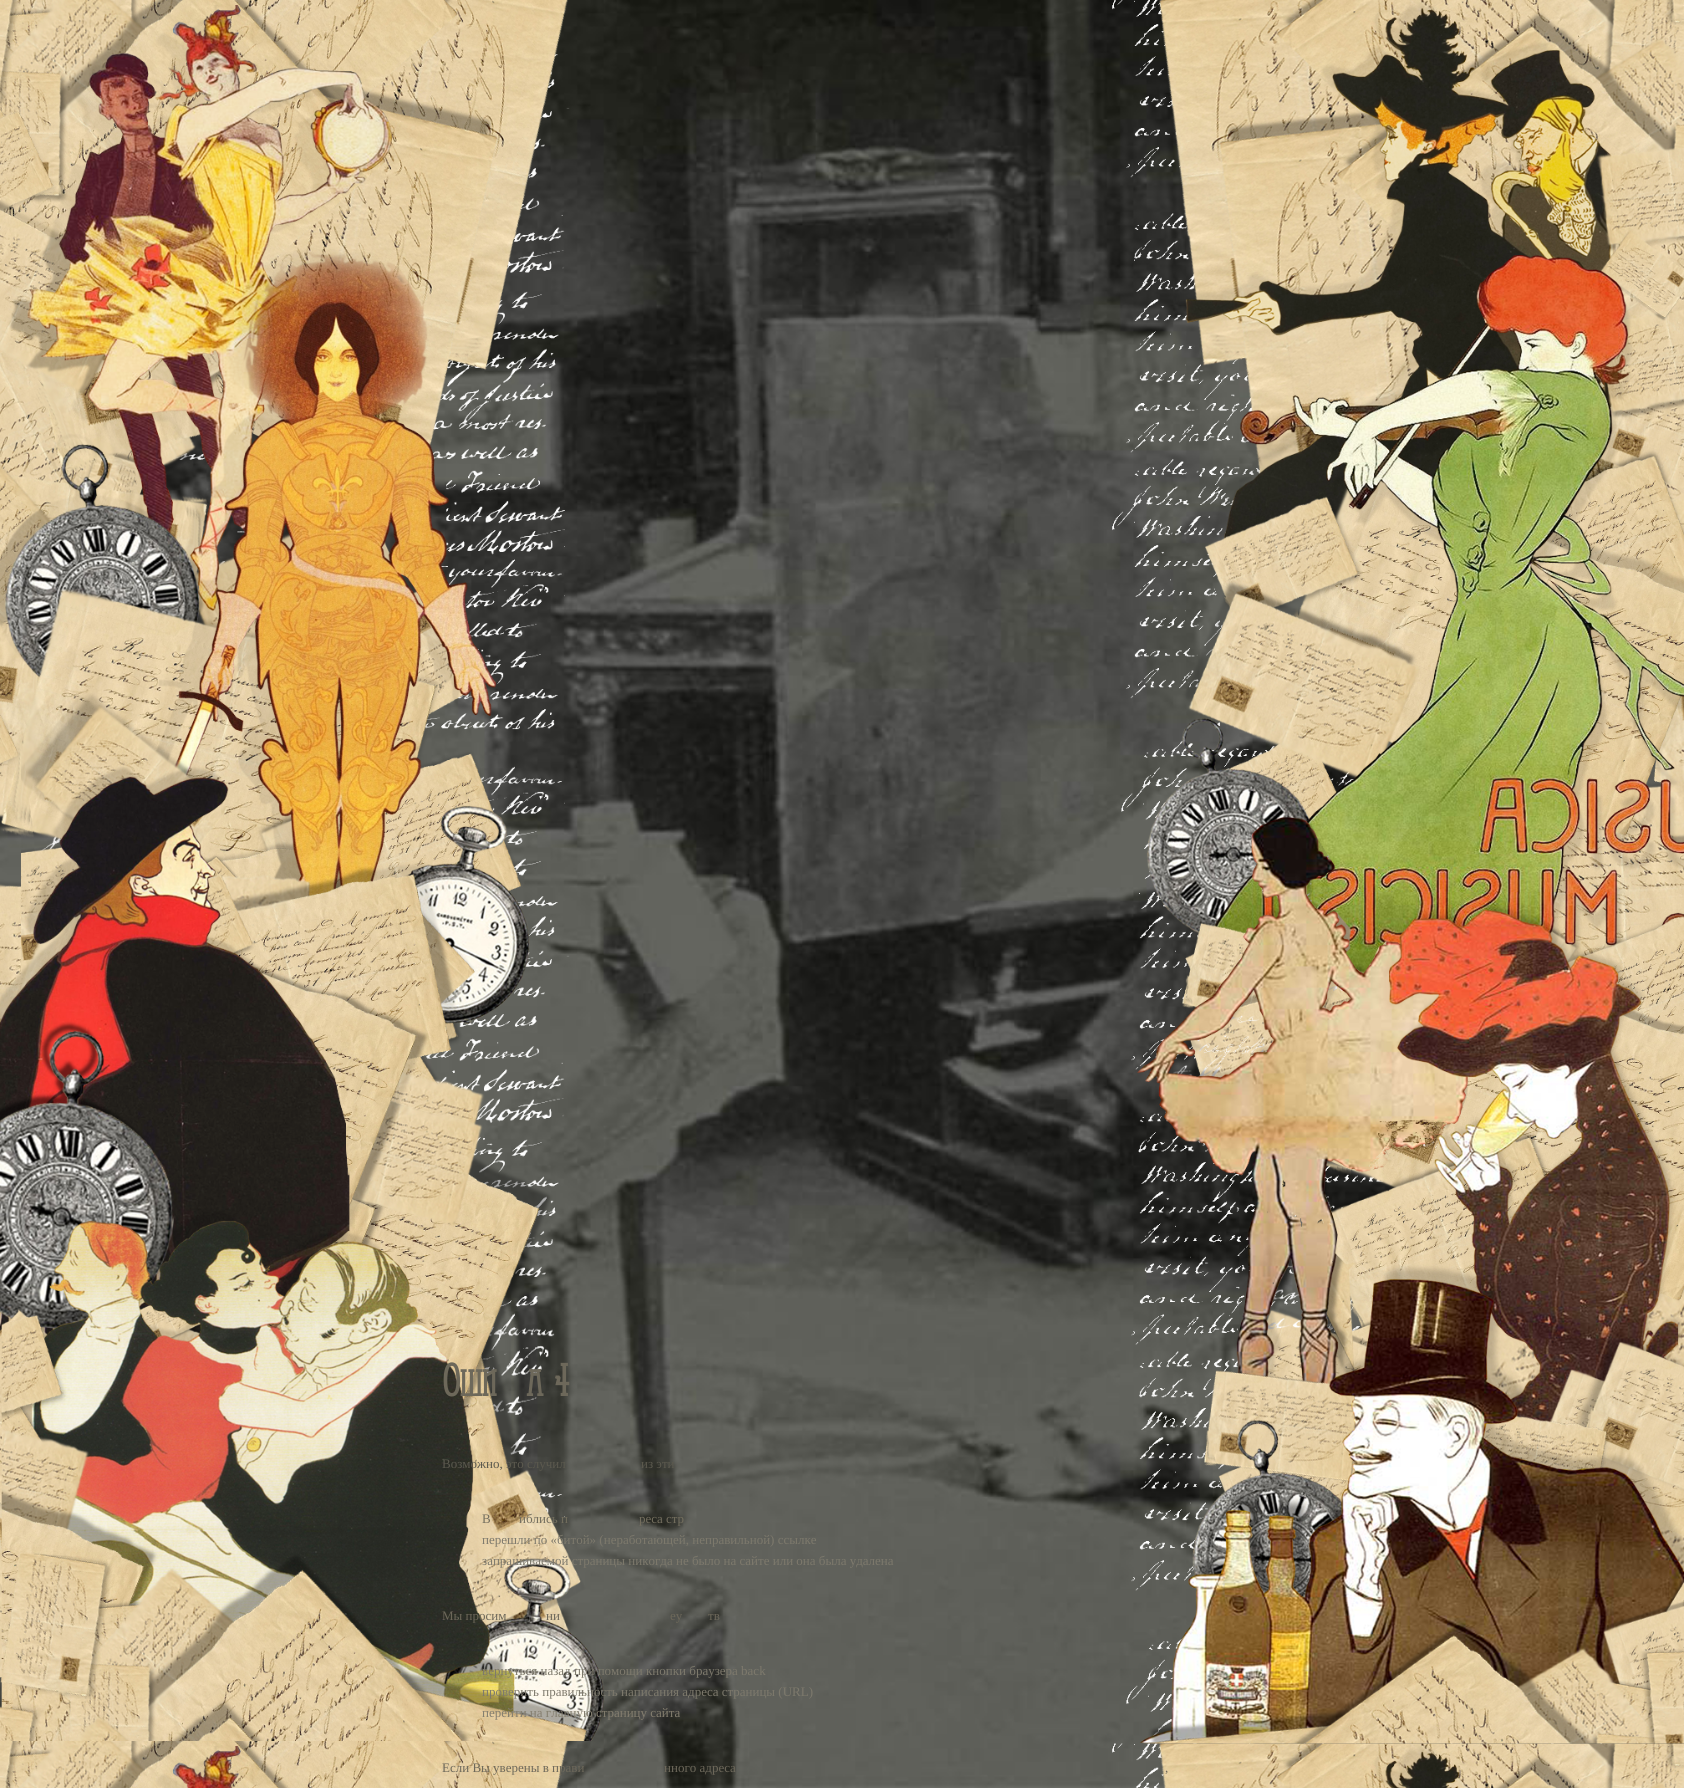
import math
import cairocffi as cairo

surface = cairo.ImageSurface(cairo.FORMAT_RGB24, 1684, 1788)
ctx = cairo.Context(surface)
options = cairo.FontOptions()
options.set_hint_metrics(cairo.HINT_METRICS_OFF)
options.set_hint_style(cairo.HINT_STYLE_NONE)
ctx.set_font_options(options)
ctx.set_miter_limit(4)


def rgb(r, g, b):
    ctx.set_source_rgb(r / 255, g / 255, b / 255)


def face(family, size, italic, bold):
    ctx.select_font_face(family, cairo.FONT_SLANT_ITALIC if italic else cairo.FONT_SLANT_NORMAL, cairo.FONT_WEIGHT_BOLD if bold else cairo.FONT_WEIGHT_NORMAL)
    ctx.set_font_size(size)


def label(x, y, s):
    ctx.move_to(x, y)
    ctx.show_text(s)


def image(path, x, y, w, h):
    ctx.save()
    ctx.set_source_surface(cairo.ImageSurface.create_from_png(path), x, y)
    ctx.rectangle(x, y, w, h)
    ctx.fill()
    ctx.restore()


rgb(255, 255, 255)
ctx.paint()
image('image0.png', 0, 0, 1684, 1788)
image('image6.png', 40, 54, 530, 1463)
image('image1.png', 0, 0, 568, 1788)
image('image2.png', 1112, 0, 490, 1788)
image('image3.png', 1159, 0, 525, 1788)
image('image4.png', 0, 5, 605, 1783)
image('image5.png', 1137, 2, 547, 1786)
face('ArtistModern', 45, 0, 1)
rgb(109, 104, 90)
label(442, 1396, 'Оши')
label(526, 1396, 'а 4')
face('Liberation Serif', 13, 0, 0)
rgb(91, 89, 78)
label(442, 1468, 'Возможно, это случил')
label(641, 1468, 'из эти')
rgb(115, 110, 94)
label(482, 1523, 'В')
label(519, 1523, 'иблись п')
label(639, 1523, 'реса стр')
rgb(125, 121, 108)
label(482, 1544, 'перешли по «битой» (неработающей, неправильной) ссылке')
label(482, 1565, 'запрашиваемой страницы никогда не было на сайте или она была удалена')
rgb(109, 104, 90)
label(442, 1620, 'Мы просим')
label(546, 1620, 'ни')
label(670, 1620, 'еу')
label(708, 1620, 'тв')
rgb(125, 121, 108)
label(482, 1675, 'вернуться назад при помощи кнопки браузера back')
label(482, 1696, 'проверить правильность написания адреса страницы (URL)')
rgb(131, 125, 110)
label(482, 1717, 'перейти на главную страницу сайта')
rgb(109, 104, 90)
label(442, 1772, 'Если Вы уверены в прави')
label(664, 1772, 'нного адреса')
label(1165, 1772, ',')
surface.write_to_png('render.png')
